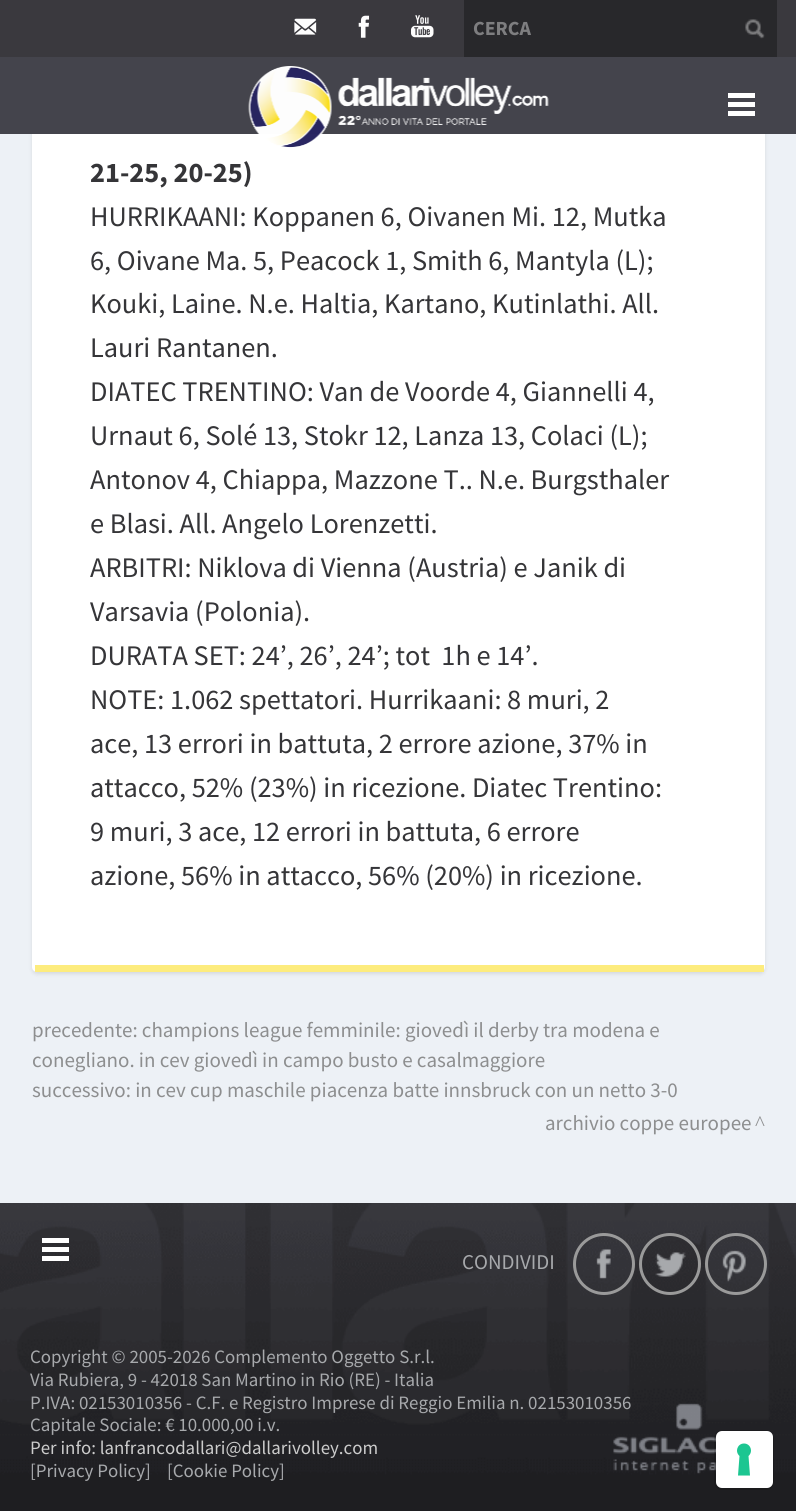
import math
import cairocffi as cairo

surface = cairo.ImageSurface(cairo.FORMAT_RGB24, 796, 1511)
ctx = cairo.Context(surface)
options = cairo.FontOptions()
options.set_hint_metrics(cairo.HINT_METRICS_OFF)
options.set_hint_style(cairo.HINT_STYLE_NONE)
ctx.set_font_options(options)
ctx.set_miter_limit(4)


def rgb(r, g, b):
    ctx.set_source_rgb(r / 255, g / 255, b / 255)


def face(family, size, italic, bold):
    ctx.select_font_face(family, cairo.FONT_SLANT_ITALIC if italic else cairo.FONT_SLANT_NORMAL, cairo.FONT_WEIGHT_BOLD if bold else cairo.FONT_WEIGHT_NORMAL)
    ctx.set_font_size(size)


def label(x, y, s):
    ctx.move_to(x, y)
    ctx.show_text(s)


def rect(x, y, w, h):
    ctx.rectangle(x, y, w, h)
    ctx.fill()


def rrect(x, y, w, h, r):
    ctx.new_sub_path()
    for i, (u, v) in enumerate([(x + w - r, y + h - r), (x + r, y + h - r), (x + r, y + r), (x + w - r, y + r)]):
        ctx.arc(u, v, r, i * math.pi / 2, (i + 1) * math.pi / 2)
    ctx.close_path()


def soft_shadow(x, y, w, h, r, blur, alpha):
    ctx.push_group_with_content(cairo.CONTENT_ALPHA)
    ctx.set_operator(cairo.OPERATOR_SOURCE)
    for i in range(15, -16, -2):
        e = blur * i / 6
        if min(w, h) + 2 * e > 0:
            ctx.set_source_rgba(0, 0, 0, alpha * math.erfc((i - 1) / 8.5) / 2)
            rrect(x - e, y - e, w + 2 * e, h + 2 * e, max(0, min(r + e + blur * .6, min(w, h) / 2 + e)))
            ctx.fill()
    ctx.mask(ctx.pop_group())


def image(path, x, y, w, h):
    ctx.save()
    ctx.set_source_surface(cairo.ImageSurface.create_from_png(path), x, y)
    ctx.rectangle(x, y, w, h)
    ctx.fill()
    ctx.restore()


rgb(237, 241, 246)
ctx.paint()
rgb(0, 0, 0)
soft_shadow(32, -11, 733, 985, 5, 2, 0.1)
rgb(255, 255, 255)
rrect(32, -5, 733, 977, 5)
ctx.fill()
rgb(58, 57, 62)
rect(0, 0, 796, 57)
image('image0.png', 294, 18, 23, 17)
image('image1.png', 358, 15, 12, 23)
image('image2.png', 411, 15, 23, 23)
rgb(40, 40, 43)
rect(464, 0, 313, 57)
face('Source Sans Pro', 20, 0, 1)
rgb(126, 126, 128)
label(473, 35, 'CERCA')
image('image3.png', 745, 19, 20, 20)
rgb(68, 68, 76)
rect(0, 57, 796, 77)
image('image4.png', 248, 66, 301, 82)
rgb(255, 255, 255)
rect(728, 93, 27, 5)
rect(728, 102, 27, 5)
rect(728, 111, 27, 5)
rgb(253, 236, 126)
rect(35, 965, 729, 7)
face('Source Sans Pro', 28.35, 0, 1)
rgb(53, 53, 56)
label(90, 182, '21-25, 20-25)')
face('Source Sans Pro', 28.35, 0, 0)
label(90, 226, 'HURRIKAANI: Koppanen 6, Oivanen Mi. 12, Mutka')
label(90, 270, '6, Oivane Ma. 5, Peacock 1, Smith 6, Mantyla (L);')
label(90, 313, 'Kouki, Laine. N.e. Haltia, Kartano, Kutinlathi. All.')
label(90, 357, 'Lauri Rantanen.')
label(90, 401, 'DIATEC TRENTINO: Van de Voorde 4, Giannelli 4,')
label(90, 445, 'Urnaut 6, Solé 13, Stokr 12, Lanza 13, Colaci (L);')
label(90, 489, 'Antonov 4, Chiappa, Mazzone T.. N.e. Burgsthaler')
label(90, 533, 'e Blasi. All. Angelo Lorenzetti.')
label(90, 577, 'ARBITRI: Niklova di Vienna (Austria) e Janik di')
label(90, 621, 'Varsavia (Polonia).')
label(90, 665, 'DURATA SET: 24’, 26’, 24’; tot  1h e 14’.')
label(90, 709, 'NOTE: 1.062 spettatori. Hurrikaani: 8 muri, 2')
label(90, 753, 'ace, 13 errori in battuta, 2 errore azione, 37% in')
label(90, 797, 'attacco, 52% (23%) in ricezione. Diatec Trentino:')
label(90, 841, '9 muri, 3 ace, 12 errori in battuta, 6 errore')
label(90, 885, 'azione, 56% in attacco, 56% (20%) in ricezione.')
face('Source Sans Pro', 21, 0, 0)
rgb(141, 142, 143)
label(32, 1037, 'precedente: champions league femminile: giovedì il derby tra modena e')
label(32, 1067, 'conegliano. in cev giovedì in campo busto e casalmaggiore')
label(32, 1097, 'successivo: in cev cup maschile piacenza batte innsbruck con un netto 3-0')
label(545, 1130, 'archivio coppe europee')
face('Liberation Serif', 21, 0, 0)
label(755, 1130, '^')
image('image5.png', 0, 1203, 796, 308)
rgb(255, 255, 255)
rect(42, 1238, 27, 5)
rect(42, 1247, 27, 5)
rect(42, 1256, 27, 5)
face('Source Sans Pro', 21, 0, 0)
rgb(167, 169, 172)
label(462, 1269, 'CONDIVIDI')
ctx.new_path()
ctx.arc(604, 1264, 29.5, 0, 2 * math.pi)
rgb(154, 154, 154)
ctx.set_line_width(3)
ctx.stroke()
image('image6.png', 596, 1249, 15, 30)
ctx.arc(670, 1264, 29.5, 0, 2 * math.pi)
ctx.stroke()
image('image7.png', 655, 1252, 31, 25)
ctx.arc(736, 1264, 29.5, 0, 2 * math.pi)
ctx.stroke()
image('image8.png', 722, 1250, 24, 32)
face('Source Sans Pro', 18.9, 0, 0)
rgb(167, 169, 172)
label(30, 1363, 'Copyright © 2005-2026 Complemento Oggetto S.r.l.')
label(30, 1386, 'Via Rubiera, 9 - 42018 San Martino in Rio (RE) - Italia')
label(30, 1409, 'P.IVA: 02153010356 - C.F. e Registro Imprese di Reggio Emilia n. 02153010356')
label(30, 1431, 'Capitale Sociale: € 10.000,00 i.v.')
rgb(204, 204, 204)
label(30, 1454, 'Per info: lanfrancodallari@dallarivolley.com')
rgb(167, 169, 172)
label(30, 1477, '[Privacy Policy]')
label(167, 1477, '[Cookie Policy]')
image('image9.png', 613, 1403, 104, 71)
rrect(715, 1431, 58, 58, 7)
ctx.set_source_rgba(0, 0, 0, 0.15)
ctx.set_line_width(2)
ctx.stroke()
rgb(255, 255, 255)
rrect(716, 1431, 57, 57, 6)
ctx.fill()
rgb(28, 198, 145)
ctx.set_fill_rule(cairo.FILL_RULE_EVEN_ODD)
ctx.new_path()
ctx.move_to(744, 1443.5)
ctx.curve_to(750.5, 1443.5, 753.5, 1451.5, 748.5, 1456)
ctx.line_to(750, 1475.5)
ctx.line_to(738, 1475.5)
ctx.line_to(739.5, 1456)
ctx.curve_to(734.5, 1451.5, 737.5, 1443.5, 744, 1443.5)
ctx.close_path()
ctx.fill()
surface.write_to_png('render.png')
